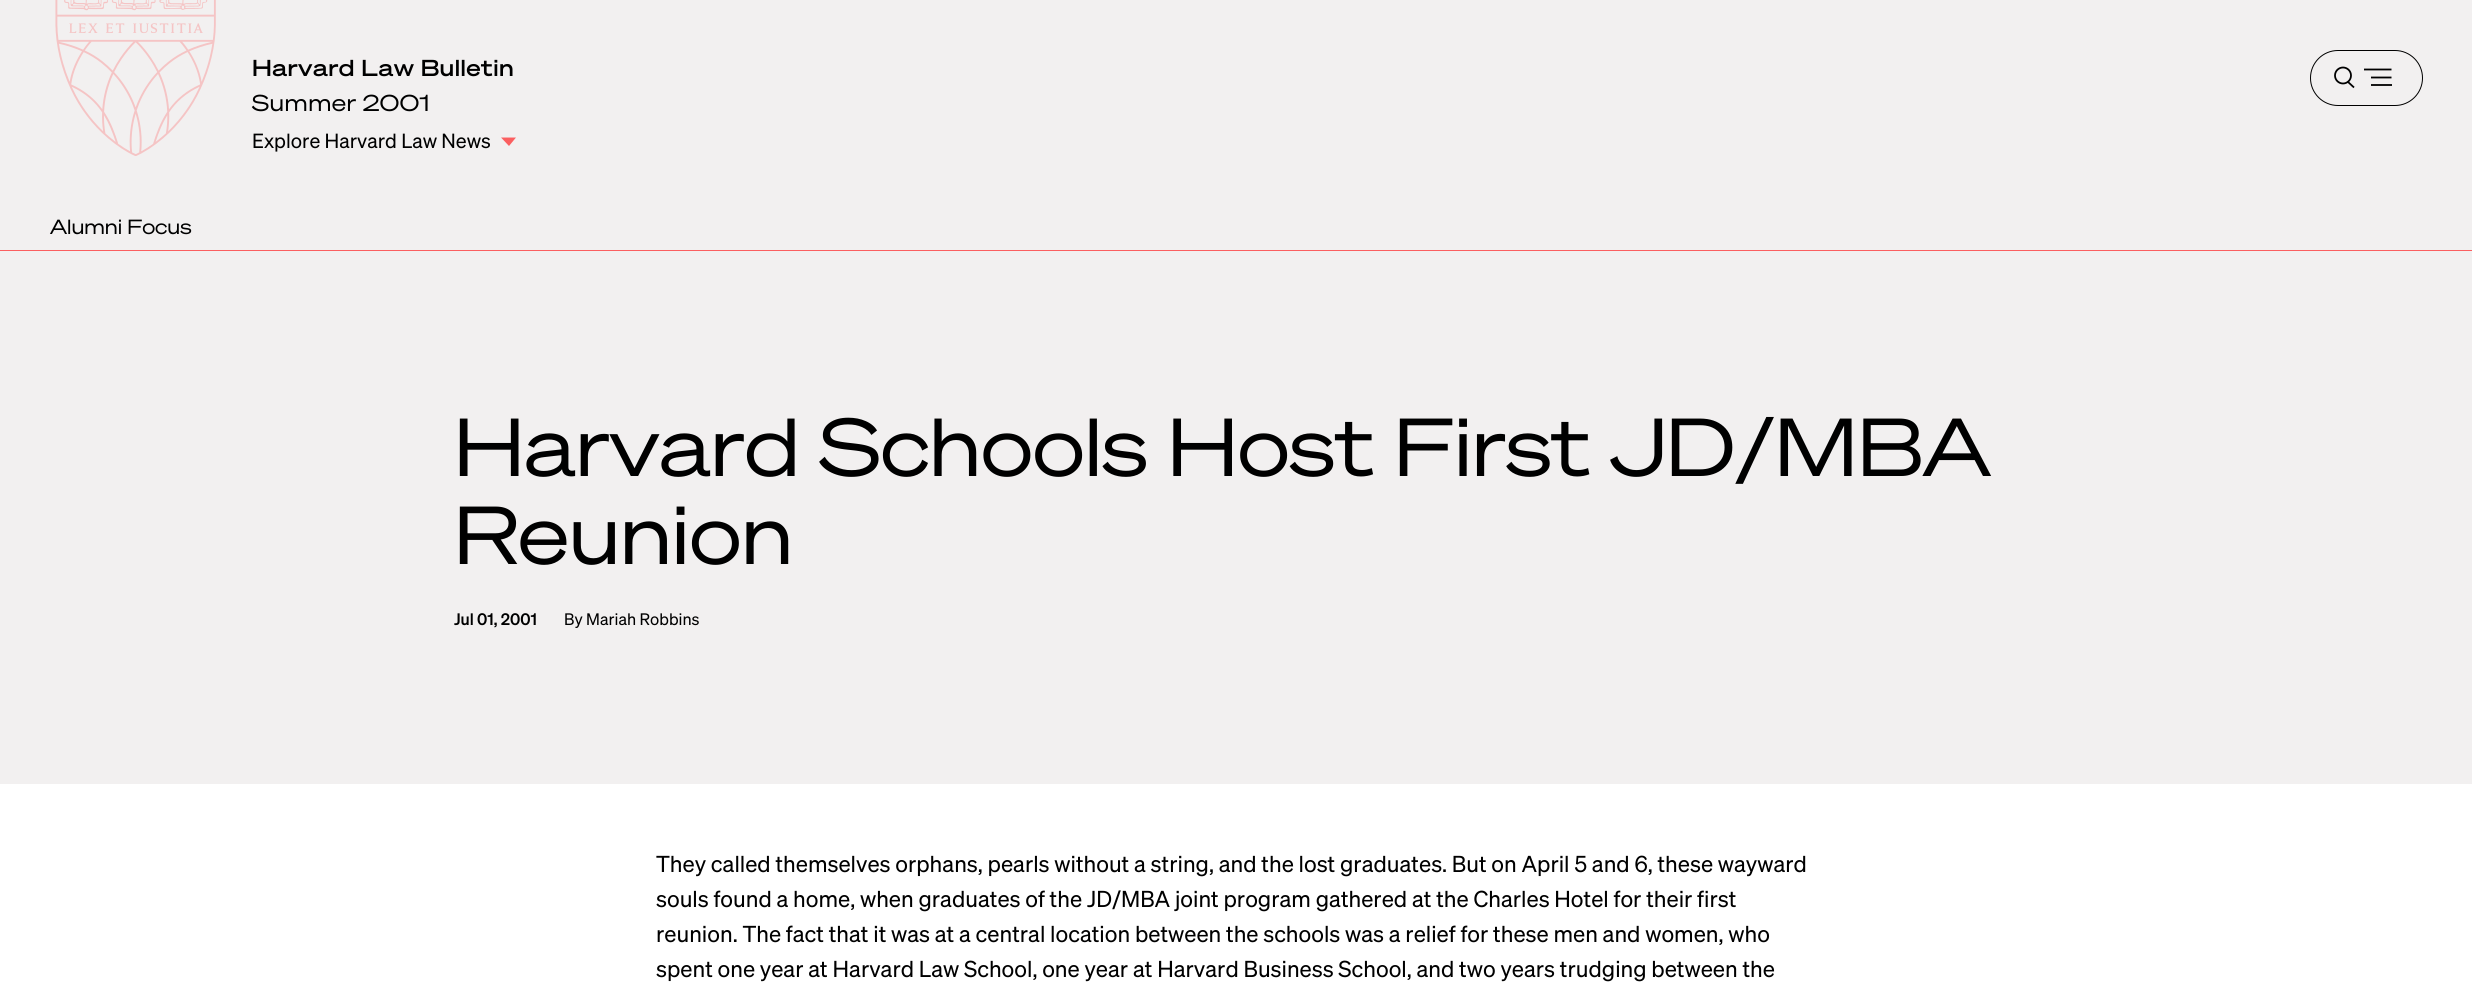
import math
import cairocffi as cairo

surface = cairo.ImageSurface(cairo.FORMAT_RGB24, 2472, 998)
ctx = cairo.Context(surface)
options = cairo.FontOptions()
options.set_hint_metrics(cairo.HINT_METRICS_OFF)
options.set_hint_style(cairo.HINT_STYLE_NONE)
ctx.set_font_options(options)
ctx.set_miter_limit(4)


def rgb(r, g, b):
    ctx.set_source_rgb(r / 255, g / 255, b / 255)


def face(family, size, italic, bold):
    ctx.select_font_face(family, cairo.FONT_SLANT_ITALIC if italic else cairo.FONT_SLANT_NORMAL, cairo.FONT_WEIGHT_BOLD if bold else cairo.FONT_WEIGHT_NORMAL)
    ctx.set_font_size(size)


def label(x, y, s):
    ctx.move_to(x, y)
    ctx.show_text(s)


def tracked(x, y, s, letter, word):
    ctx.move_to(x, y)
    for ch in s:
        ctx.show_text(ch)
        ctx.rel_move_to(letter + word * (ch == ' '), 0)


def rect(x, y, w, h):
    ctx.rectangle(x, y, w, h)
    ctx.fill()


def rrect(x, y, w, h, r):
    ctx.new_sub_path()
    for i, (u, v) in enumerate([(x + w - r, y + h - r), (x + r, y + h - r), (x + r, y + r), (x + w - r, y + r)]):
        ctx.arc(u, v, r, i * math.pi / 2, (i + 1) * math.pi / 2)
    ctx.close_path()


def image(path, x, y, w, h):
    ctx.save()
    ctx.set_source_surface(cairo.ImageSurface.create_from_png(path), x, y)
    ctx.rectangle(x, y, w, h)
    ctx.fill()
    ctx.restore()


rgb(255, 255, 255)
ctx.paint()
rgb(242, 240, 240)
rect(0, 0, 2472, 784)
image('image0.png', 55, 0, 161, 156)
face('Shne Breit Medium', 22.5, 0, 0)
rgb(0, 0, 0)
tracked(252, 76, 'Harvard Law Bulletin', 0.5, 0)
face('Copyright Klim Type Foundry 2', 22.5, 0, 0)
tracked(252, 111, 'Summer 2001', 0.5, 0)
rrect(2310.5, 50.5, 112, 55, 27.5)
ctx.set_line_width(1)
ctx.stroke()
ctx.arc(2343, 75.5, 8, 0, 2 * math.pi)
ctx.set_line_width(1.8)
ctx.stroke()
ctx.new_path()
ctx.move_to(2347.5, 81.5)
ctx.line_to(2354, 87.5)
ctx.move_to(2364, 69.5)
ctx.line_to(2391.5, 69.5)
ctx.move_to(2371, 77.5)
ctx.line_to(2391.5, 77.5)
ctx.stroke()
rgb(24, 24, 24)
rect(2371, 84, 21, 2)
face('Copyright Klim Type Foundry', 20, 0, 0)
rgb(0, 0, 0)
label(252, 148, 'Explore Harvard Law News')
rgb(251, 95, 96)
ctx.new_path()
ctx.move_to(501, 137.5)
ctx.line_to(516, 137.5)
ctx.line_to(509, 146)
ctx.close_path()
ctx.fill()
face('Copyright Klim Type Foundry 2', 20, 0, 0)
rgb(0, 0, 0)
label(50, 234, 'Alumni Focus')
rgb(251, 95, 96)
rect(0, 250, 2472, 1)
face('Copyright Klim Type Foundry 2', 80, 0, 0)
rgb(0, 0, 0)
label(454, 476, 'Harvard Schools Host First JD/MBA')
label(454, 564, 'Reunion')
face('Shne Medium', 16.25, 0, 0)
label(454, 625, 'Jul 01, 2001')
face('Copyright Klim Type Foundry', 16.25, 0, 0)
label(564, 625, 'By Mariah Robbins')
face('Copyright Klim Type Foundry', 22.5, 0, 0)
label(656, 872, 'They called themselves orphans, pearls without a string, and the lost graduates. But on April 5 and 6, these wayward')
label(656, 907, 'souls found a home, when graduates of the JD/MBA joint program gathered at the Charles Hotel for their first')
label(656, 942, 'reunion. The fact that it was at a central location between the schools was a relief for these men and women, who')
label(656, 977, 'spent one year at Harvard Law School, one year at Harvard Business School, and two years trudging between the')
surface.write_to_png('render.png')
